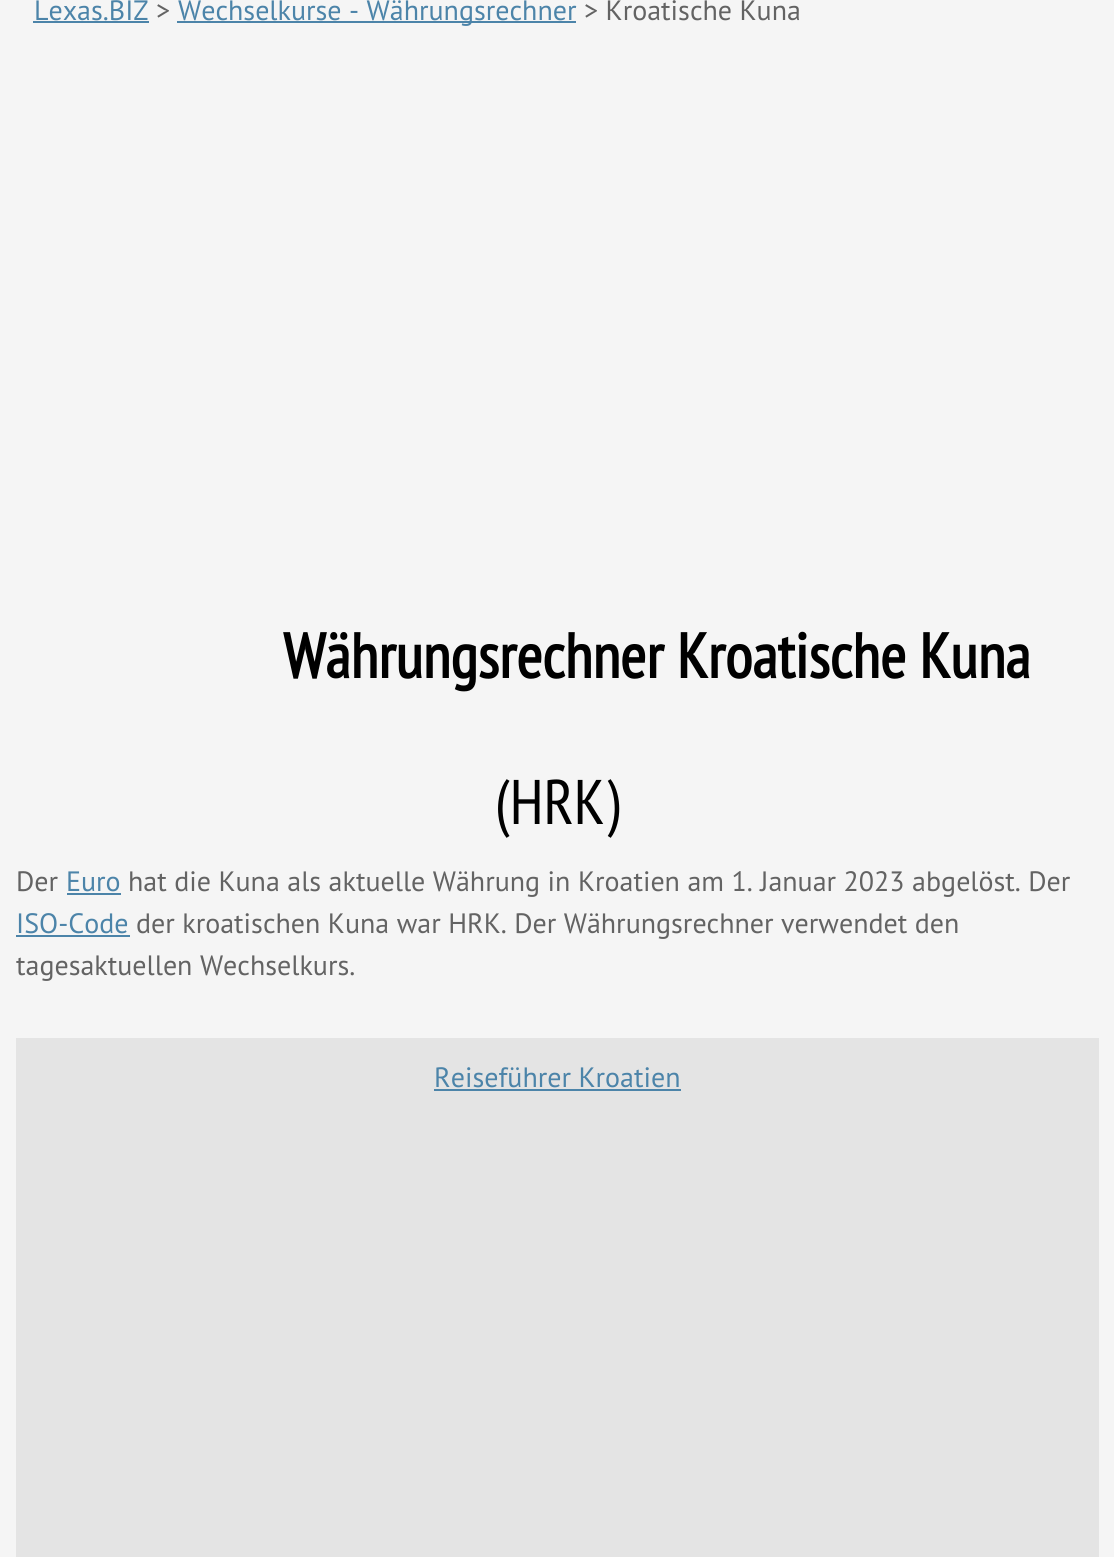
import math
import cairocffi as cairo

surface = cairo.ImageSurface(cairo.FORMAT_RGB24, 1114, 1557)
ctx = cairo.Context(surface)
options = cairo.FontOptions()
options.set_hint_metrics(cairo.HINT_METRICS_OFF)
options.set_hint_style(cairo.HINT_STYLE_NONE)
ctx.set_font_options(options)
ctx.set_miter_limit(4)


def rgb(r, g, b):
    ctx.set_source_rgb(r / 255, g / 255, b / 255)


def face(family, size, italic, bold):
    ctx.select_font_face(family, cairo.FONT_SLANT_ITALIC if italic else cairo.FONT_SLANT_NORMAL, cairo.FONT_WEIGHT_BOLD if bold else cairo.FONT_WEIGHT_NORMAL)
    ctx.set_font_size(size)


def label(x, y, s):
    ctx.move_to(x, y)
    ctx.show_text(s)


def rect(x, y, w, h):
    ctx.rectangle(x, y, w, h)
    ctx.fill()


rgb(245, 245, 245)
ctx.paint()
face('PT Sans', 28, 0, 0)
rgb(76, 132, 169)
label(34, 20, 'Lexas.BIZ')
rect(33, 21, 116, 2)
rgb(99, 99, 99)
label(156, 20, '>')
rgb(76, 132, 169)
rect(177, 21, 399, 2)
label(178, 20, 'Wechselkurse - Währungsrechner')
rgb(99, 99, 99)
label(584, 20, '> Kroatische Kuna')
face('PT Sans Narrow', 63, 0, 1)
rgb(0, 0, 0)
label(283, 678, 'Währungsrechner Kroatische Kuna')
face('PT Sans Narrow', 63, 0, 0)
label(495, 824, '(HRK)')
face('PT Sans', 28, 0, 0)
rgb(99, 99, 99)
label(16, 891, 'Der')
rgb(76, 132, 169)
label(66, 891, 'Euro')
rect(67, 893, 54, 2)
rgb(99, 99, 99)
label(128, 891, 'hat die Kuna als aktuelle Währung in Kroatien am 1. Januar 2023 abgelöst. Der')
rgb(76, 132, 169)
label(16, 933, 'ISO-Code')
rect(16, 935, 114, 2)
rgb(99, 99, 99)
label(136, 933, 'der kroatischen Kuna war HRK. Der Währungsrechner verwendet den')
label(16, 975, 'tagesaktuellen Wechselkurs.')
rgb(228, 228, 228)
rect(16, 1038, 1083, 519)
rgb(76, 132, 169)
label(434, 1087, 'Reiseführer Kroatien')
rect(434, 1089, 247, 2)
surface.write_to_png('render.png')
